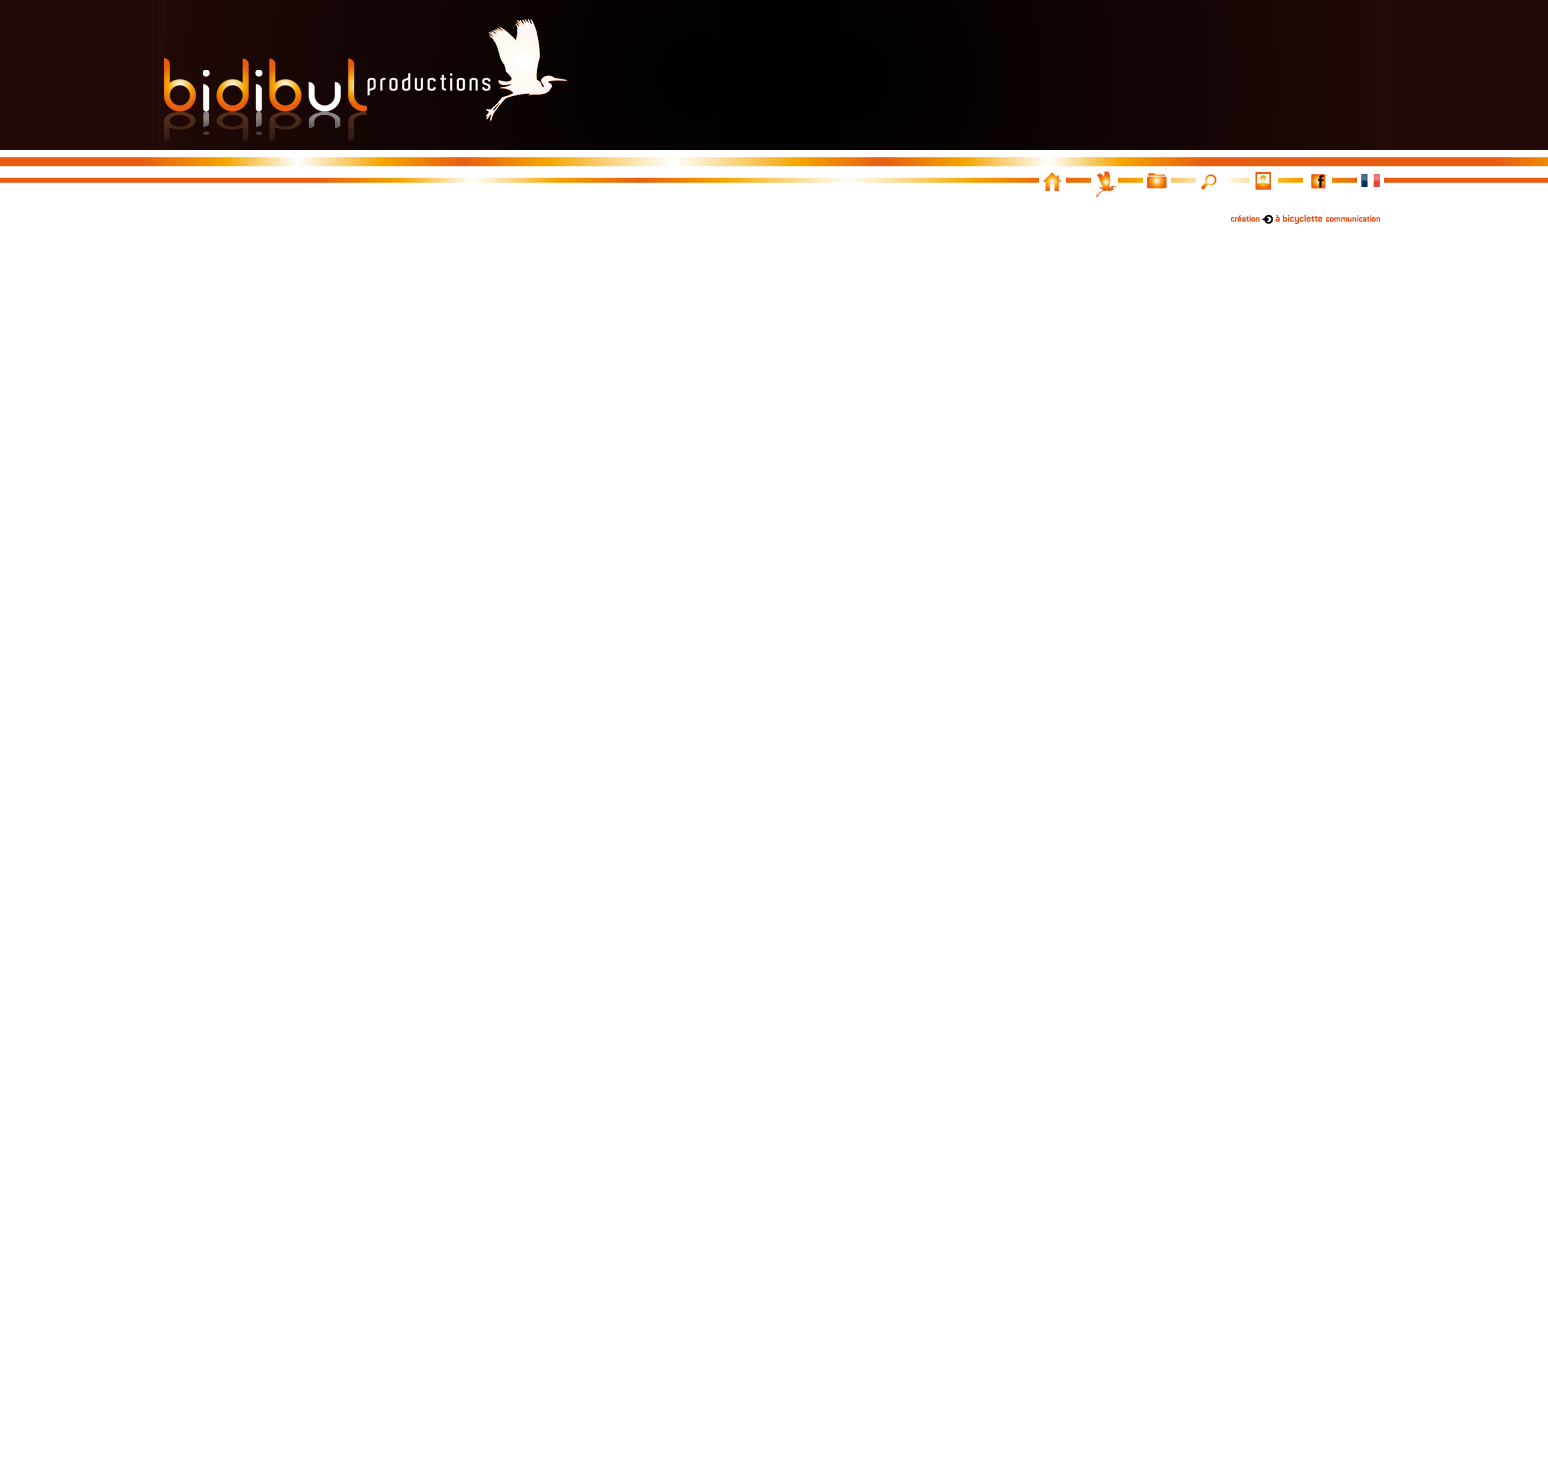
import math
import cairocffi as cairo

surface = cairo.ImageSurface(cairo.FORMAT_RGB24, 1548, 1475)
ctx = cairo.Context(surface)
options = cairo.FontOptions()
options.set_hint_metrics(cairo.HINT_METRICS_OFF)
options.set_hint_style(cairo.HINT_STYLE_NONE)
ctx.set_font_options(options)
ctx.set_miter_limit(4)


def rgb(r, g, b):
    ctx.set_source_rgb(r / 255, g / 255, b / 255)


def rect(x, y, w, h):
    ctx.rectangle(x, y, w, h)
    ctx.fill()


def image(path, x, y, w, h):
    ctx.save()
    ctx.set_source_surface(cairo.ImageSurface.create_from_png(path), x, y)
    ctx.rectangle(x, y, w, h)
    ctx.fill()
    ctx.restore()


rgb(255, 255, 255)
ctx.paint()
image('image0.png', 0, 0, 1548, 183)
rgb(36, 10, 8)
rect(157, 0, 1235, 150)
image('image1.png', 165, 0, 1211, 150)
image('image2.png', 164, 58, 314, 84)
image('image3.png', 482, 19, 85, 102)
image('image4.png', 1039, 172, 27, 20)
image('image5.png', 1091, 171, 27, 27)
image('image6.png', 1143, 173, 28, 16)
image('image7.png', 1196, 174, 26, 16)
image('image8.png', 1249, 172, 29, 18)
image('image9.png', 1303, 174, 29, 15)
image('image10.png', 1357, 174, 27, 13)
image('image11.png', 1231, 215, 149, 9)
surface.write_to_png('render.png')
